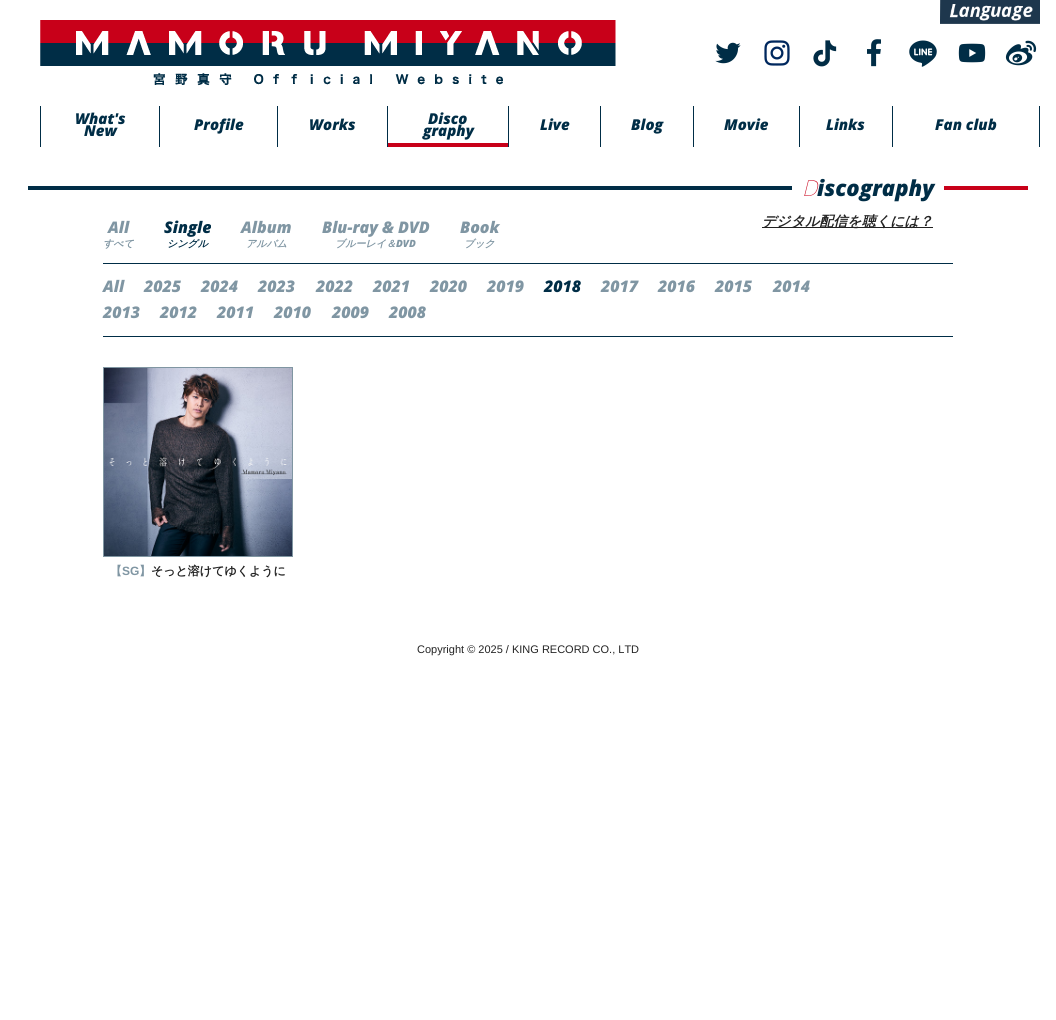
import math
import cairocffi as cairo

surface = cairo.ImageSurface(cairo.FORMAT_RGB24, 1056, 1020)
ctx = cairo.Context(surface)
options = cairo.FontOptions()
options.set_hint_metrics(cairo.HINT_METRICS_OFF)
options.set_hint_style(cairo.HINT_STYLE_NONE)
ctx.set_font_options(options)
ctx.set_miter_limit(4)


def rgb(r, g, b):
    ctx.set_source_rgb(r / 255, g / 255, b / 255)


def face(family, size, italic, bold):
    ctx.select_font_face(family, cairo.FONT_SLANT_ITALIC if italic else cairo.FONT_SLANT_NORMAL, cairo.FONT_WEIGHT_BOLD if bold else cairo.FONT_WEIGHT_NORMAL)
    ctx.set_font_size(size)


def label(x, y, s):
    ctx.move_to(x, y)
    ctx.show_text(s)


def rect(x, y, w, h):
    ctx.rectangle(x, y, w, h)
    ctx.fill()


def image(path, x, y, w, h):
    ctx.save()
    ctx.set_source_surface(cairo.ImageSurface.create_from_png(path), x, y)
    ctx.rectangle(x, y, w, h)
    ctx.fill()
    ctx.restore()


rgb(255, 255, 255)
ctx.paint()
image('image0.png', 40, 20, 576, 66)
image('image1.png', 940, 0, 100, 24)
image('image2.png', 715, 42, 26, 22)
image('image3.png', 764, 40, 26, 26)
image('image4.png', 813, 40, 24, 27)
image('image5.png', 867, 39, 14, 28)
image('image6.png', 909, 40, 28, 27)
image('image7.png', 958, 43, 28, 20)
image('image8.png', 1005, 40, 32, 26)
rgb(0, 45, 70)
rect(40, 106, 1, 41)
face('Open Sans ExtraBold', 15, 1, 0)
label(75, 124, 'What\'s')
label(84, 136, 'New')
rect(159, 106, 1, 41)
label(194, 130, 'Profile')
rect(277, 106, 1, 41)
label(309, 130, 'Works')
rect(387, 106, 1, 41)
rgb(200, 0, 25)
rect(388, 143, 120, 4)
rgb(0, 45, 70)
label(428, 124, 'Disco')
label(423, 136, 'graphy')
rect(508, 106, 1, 41)
label(540, 130, 'Live')
rect(600, 106, 1, 41)
label(631, 130, 'Blog')
rect(693, 106, 1, 41)
label(724, 130, 'Movie')
rect(799, 106, 1, 41)
label(826, 130, 'Links')
rect(1039, 106, 1, 41)
rect(892, 106, 1, 41)
label(935, 130, 'Fan club')
rect(28, 186, 764, 4)
face('Noto Sans Thin', 22, 1, 0)
rgb(200, 0, 25)
label(802, 196, 'D')
face('Open Sans ExtraBold', 22, 1, 0)
rgb(0, 45, 70)
label(817, 196, 'iscography')
rgb(200, 0, 25)
rect(944, 186, 84, 4)
rgb(0, 45, 70)
rect(103, 263, 850, 1)
face('Open Sans ExtraBold', 16, 1, 0)
rgb(128, 150, 163)
label(108, 233, 'All')
face('WenQuanYi Zen Hei', 10, 1, 1)
label(103, 247, 'すべて')
face('Open Sans ExtraBold', 16, 1, 0)
rgb(0, 45, 70)
label(164, 233, 'Single')
face('WenQuanYi Zen Hei', 10, 1, 1)
label(167, 247, 'シングル')
face('Open Sans ExtraBold', 16, 1, 0)
rgb(128, 150, 163)
label(241, 233, 'Album')
face('WenQuanYi Zen Hei', 10, 1, 1)
label(246, 247, 'アルバム')
face('Open Sans ExtraBold', 16, 1, 0)
label(322, 233, 'Blu-ray & DVD')
face('WenQuanYi Zen Hei', 10, 1, 1)
label(335, 247, 'ブルーレイ＆')
face('Open Sans ExtraBold', 10, 1, 0)
label(396, 247, 'DVD')
face('Open Sans ExtraBold', 16, 1, 0)
label(460, 233, 'Book')
face('WenQuanYi Zen Hei', 10, 1, 1)
label(464, 247, 'ブック')
rgb(33, 33, 33)
rect(762, 227, 171, 1)
face('WenQuanYi Zen Hei', 14, 1, 1)
rgb(35, 35, 35)
label(762, 226, 'デジタル配信を聴くには？')
rgb(0, 45, 70)
rect(103, 336, 850, 1)
face('Open Sans ExtraBold', 16, 1, 0)
rgb(128, 150, 163)
label(103, 292, 'All')
label(144, 292, '2025')
label(201, 292, '2024')
label(258, 292, '2023')
label(316, 292, '2022')
label(373, 292, '2021')
label(430, 292, '2020')
label(487, 292, '2019')
rgb(0, 45, 70)
label(544, 292, '2018')
rgb(128, 150, 163)
label(601, 292, '2017')
label(658, 292, '2016')
label(715, 292, '2015')
label(773, 292, '2014')
label(103, 318, '2013')
label(160, 318, '2012')
label(217, 318, '2011')
label(274, 318, '2010')
label(332, 318, '2009')
label(389, 318, '2008')
ctx.rectangle(103.5, 367.5, 189, 189)
rgb(128, 150, 162)
ctx.set_line_width(1)
ctx.stroke()
image('image9.png', 104, 368, 188, 188)
face('WenQuanYi Zen Hei', 12, 0, 1)
rgb(128, 150, 163)
label(110, 575, '【')
face('Liberation Sans', 12, 0, 1)
label(122, 575, 'SG')
face('WenQuanYi Zen Hei', 12, 0, 1)
label(139, 575, '】')
rgb(35, 35, 35)
label(151, 575, 'そっと溶けてゆくように')
face('Liberation Sans', 11, 0, 0)
label(417, 653, 'Copyright © 2025 / KING RECORD CO., LTD')
surface.write_to_png('render.png')
